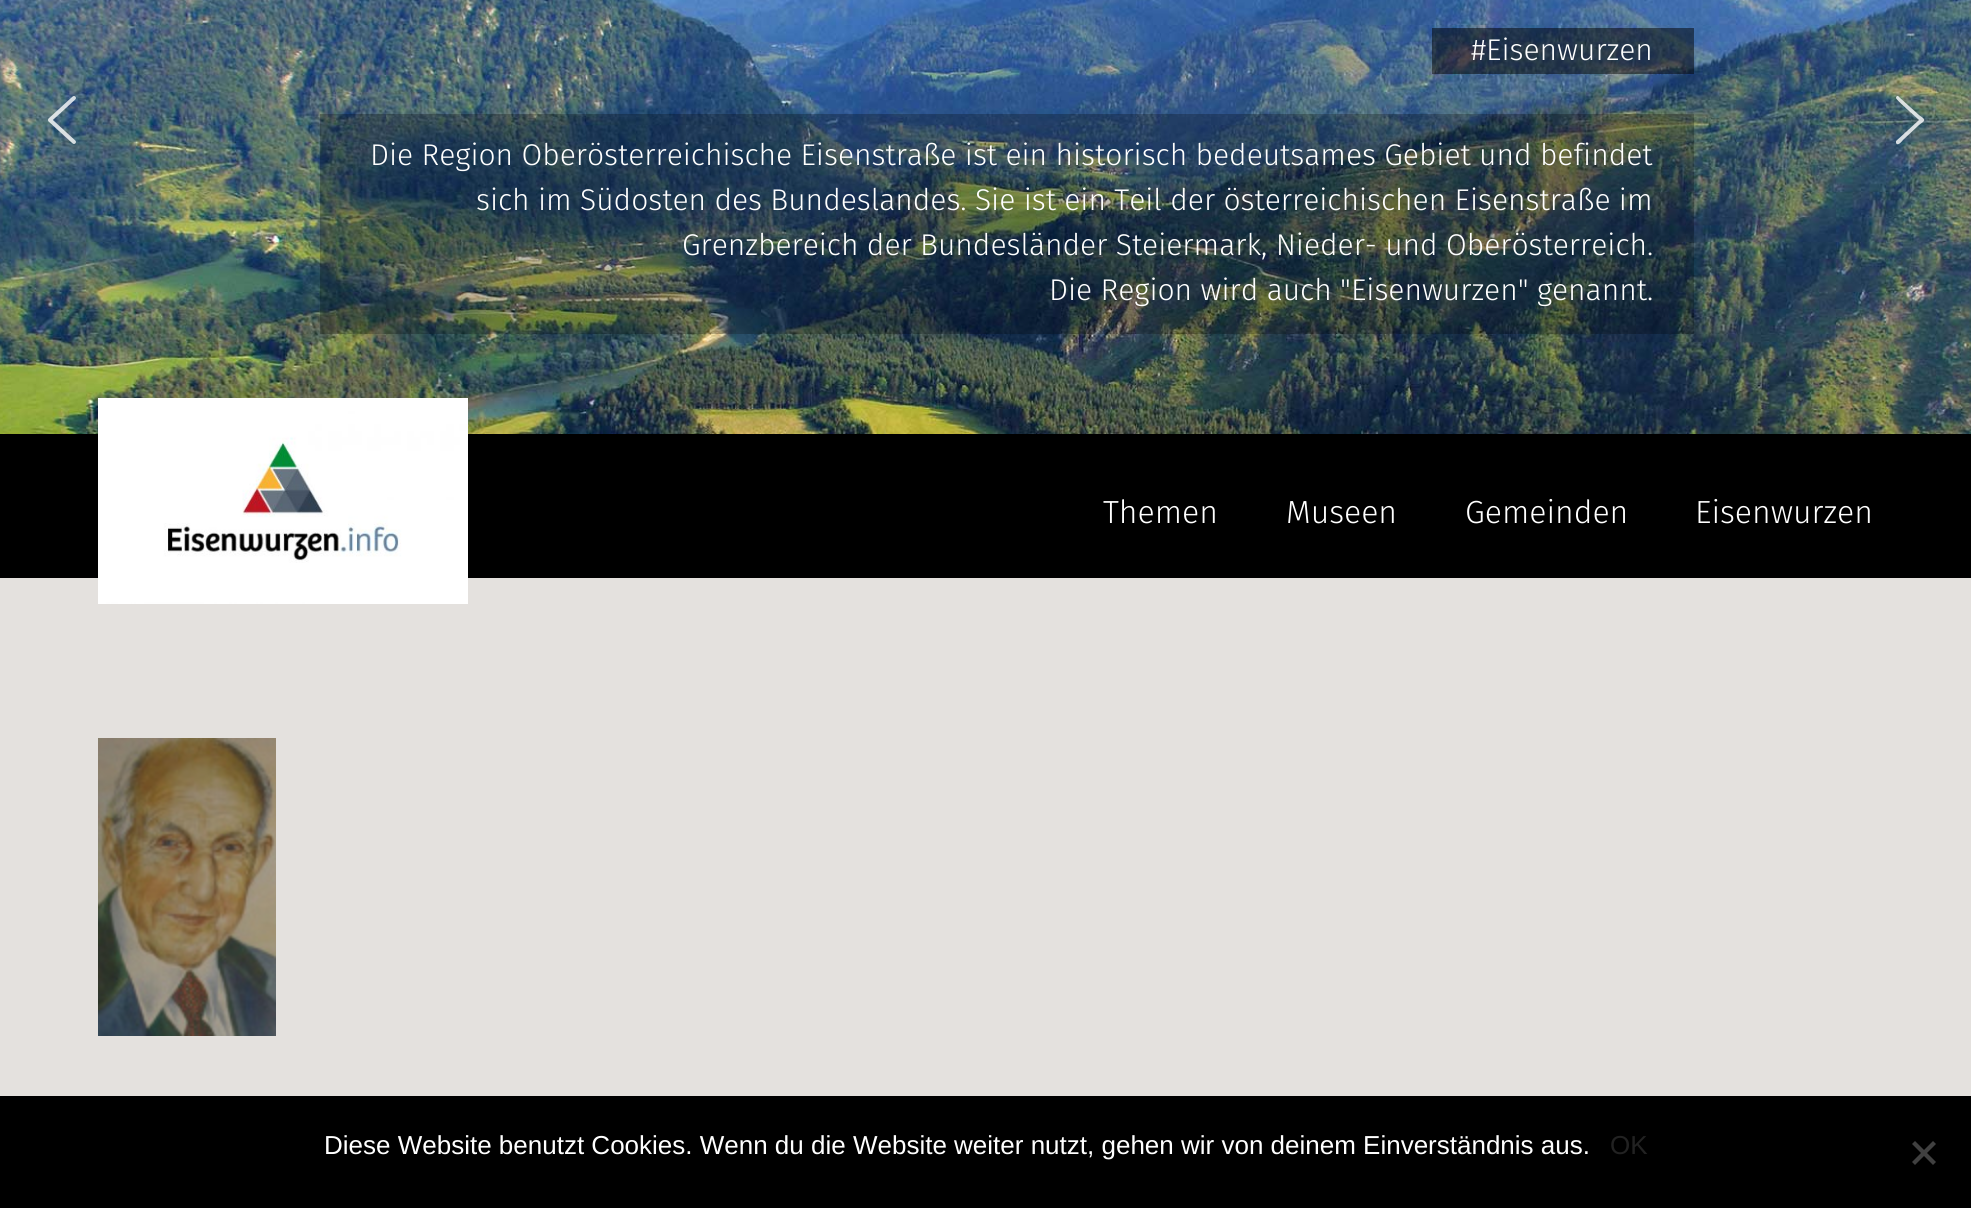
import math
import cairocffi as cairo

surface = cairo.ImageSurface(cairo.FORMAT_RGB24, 1971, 1208)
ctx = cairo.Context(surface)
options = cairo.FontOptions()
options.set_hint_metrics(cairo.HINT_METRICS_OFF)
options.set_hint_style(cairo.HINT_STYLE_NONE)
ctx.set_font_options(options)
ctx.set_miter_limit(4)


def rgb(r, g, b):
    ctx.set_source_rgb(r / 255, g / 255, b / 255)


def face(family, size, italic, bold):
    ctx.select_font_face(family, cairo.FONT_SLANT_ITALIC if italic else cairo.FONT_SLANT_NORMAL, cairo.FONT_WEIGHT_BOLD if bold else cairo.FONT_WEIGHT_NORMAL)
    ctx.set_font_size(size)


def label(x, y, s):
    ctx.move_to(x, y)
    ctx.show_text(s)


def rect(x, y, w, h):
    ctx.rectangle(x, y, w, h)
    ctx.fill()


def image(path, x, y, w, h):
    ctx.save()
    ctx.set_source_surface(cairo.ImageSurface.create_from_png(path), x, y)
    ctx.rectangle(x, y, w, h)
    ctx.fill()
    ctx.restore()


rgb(255, 255, 255)
ctx.paint()
image('image1.png', 0, 0, 1971, 434)
image('image0.png', 48, 96, 28, 48)
ctx.set_source_rgba(0, 0, 0, 0.5)
rect(1432, 28, 262, 46)
face('Fira Sans Light', 30, 0, 0)
rgb(255, 255, 255)
label(1471, 60, '#Eisenwurzen')
ctx.set_source_rgba(0, 0, 0, 0.25)
rect(320, 114, 1374, 220)
rgb(255, 255, 255)
label(370, 165, 'Die Region Oberösterreichische Eisenstraße ist ein historisch bedeutsames Gebiet und befindet')
label(476, 210, 'sich im Südosten des Bundeslandes. Sie ist ein Teil der österreichischen Eisenstraße im')
label(682, 255, 'Grenzbereich der Bundesländer Steiermark, Nieder- und Oberösterreich.')
label(1049, 300, 'Die Region wird auch "Eisenwurzen" genannt.')
ctx.set_source_rgba(1, 1, 1, 0.8)
ctx.set_fill_rule(cairo.FILL_RULE_EVEN_ODD)
ctx.new_path()
ctx.move_to(1899, 97)
ctx.curve_to(1898, 95, 1896, 96, 1896, 98)
ctx.curve_to(1896, 100, 1916, 117, 1919, 120)
ctx.line_to(1896, 141)
ctx.line_to(1896, 143)
ctx.curve_to(1898, 147, 1903, 140, 1903, 140)
ctx.line_to(1919, 125)
ctx.curve_to(1926, 120, 1926, 120, 1919, 115)
ctx.close_path()
ctx.fill()
rgb(0, 0, 0)
rect(0, 434, 1971, 144)
rgb(228, 225, 222)
rect(0, 578, 1971, 518)
image('image2.png', 98, 398, 370, 206)
face('Fira Sans Light', 32, 0, 0)
rgb(255, 255, 255)
label(1103, 523, 'Themen')
label(1286, 523, 'Museen')
label(1465, 523, 'Gemeinden')
label(1695, 523, 'Eisenwurzen')
image('image3.png', 98, 738, 178, 298)
rgb(0, 0, 0)
rect(0, 1096, 1971, 112)
face('Liberation Sans', 26, 0, 0)
rgb(255, 255, 255)
label(324, 1154, 'Diese Website benutzt Cookies. Wenn du die Website weiter nutzt, gehen wir von deinem Einverständnis aus.')
rgb(34, 34, 34)
label(1610, 1154, 'OK')
rgb(64, 64, 64)
ctx.set_fill_rule(cairo.FILL_RULE_WINDING)
ctx.new_path()
ctx.move_to(1933, 1141)
ctx.line_to(1936, 1144)
ctx.line_to(1915, 1165)
ctx.line_to(1912, 1162)
ctx.close_path()
ctx.fill()
ctx.new_path()
ctx.move_to(1912, 1144)
ctx.line_to(1915, 1141)
ctx.line_to(1936, 1162)
ctx.line_to(1933, 1165)
ctx.close_path()
ctx.fill()
surface.write_to_png('render.png')
